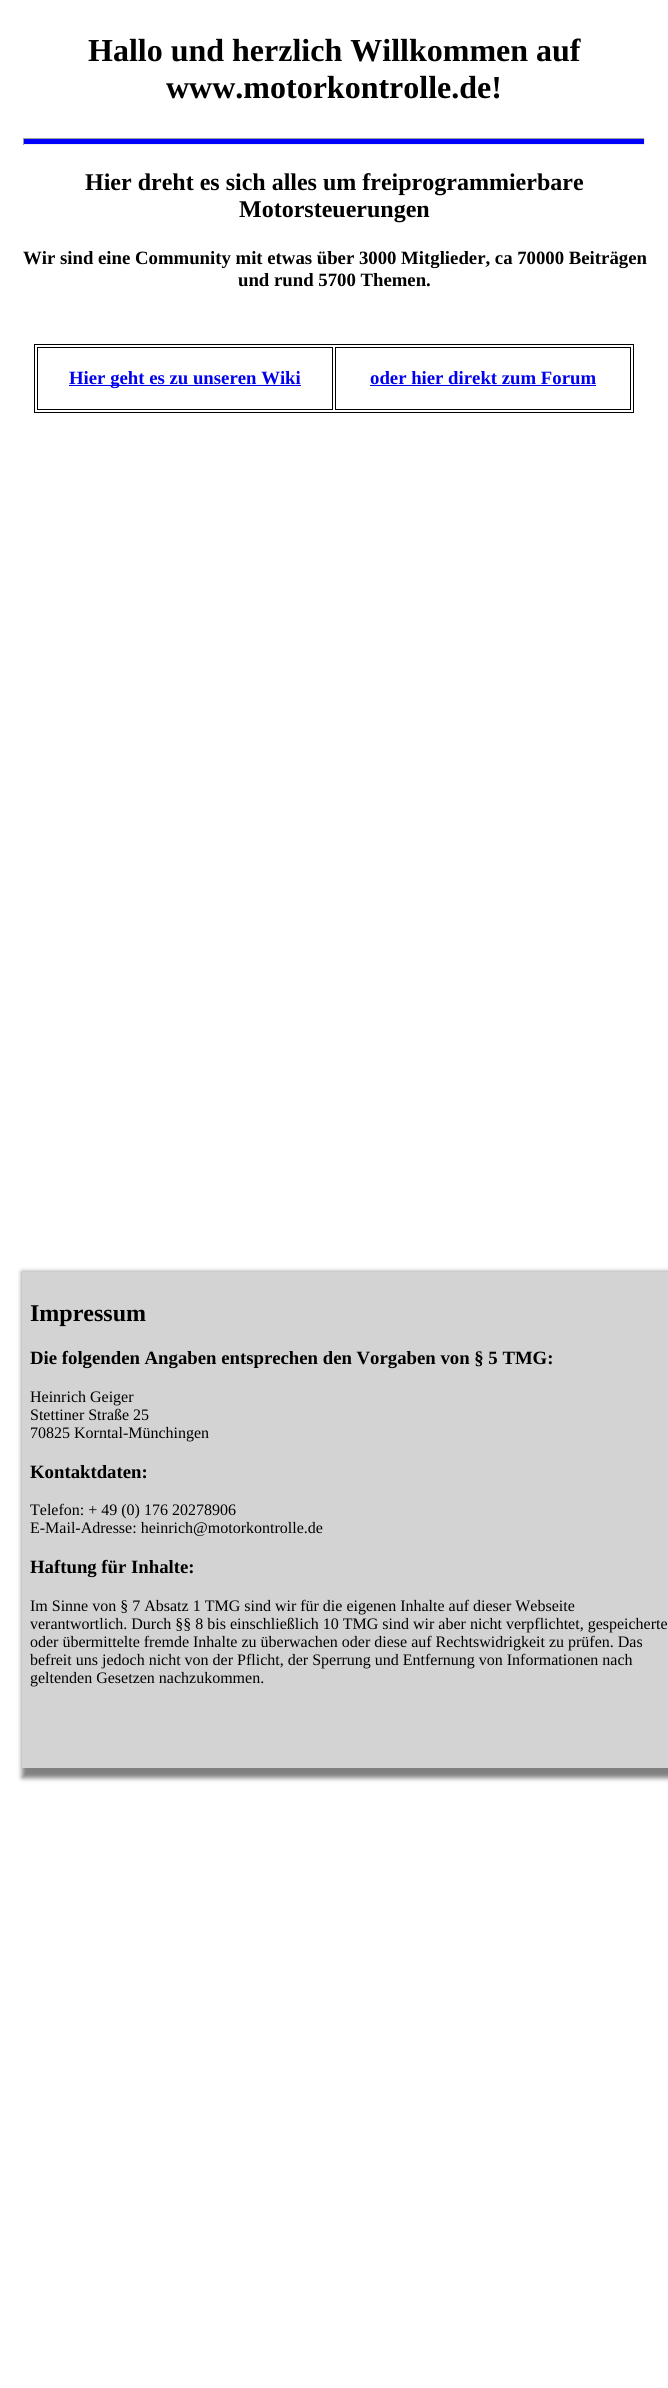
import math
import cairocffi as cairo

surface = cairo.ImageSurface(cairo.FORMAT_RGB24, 668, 2388)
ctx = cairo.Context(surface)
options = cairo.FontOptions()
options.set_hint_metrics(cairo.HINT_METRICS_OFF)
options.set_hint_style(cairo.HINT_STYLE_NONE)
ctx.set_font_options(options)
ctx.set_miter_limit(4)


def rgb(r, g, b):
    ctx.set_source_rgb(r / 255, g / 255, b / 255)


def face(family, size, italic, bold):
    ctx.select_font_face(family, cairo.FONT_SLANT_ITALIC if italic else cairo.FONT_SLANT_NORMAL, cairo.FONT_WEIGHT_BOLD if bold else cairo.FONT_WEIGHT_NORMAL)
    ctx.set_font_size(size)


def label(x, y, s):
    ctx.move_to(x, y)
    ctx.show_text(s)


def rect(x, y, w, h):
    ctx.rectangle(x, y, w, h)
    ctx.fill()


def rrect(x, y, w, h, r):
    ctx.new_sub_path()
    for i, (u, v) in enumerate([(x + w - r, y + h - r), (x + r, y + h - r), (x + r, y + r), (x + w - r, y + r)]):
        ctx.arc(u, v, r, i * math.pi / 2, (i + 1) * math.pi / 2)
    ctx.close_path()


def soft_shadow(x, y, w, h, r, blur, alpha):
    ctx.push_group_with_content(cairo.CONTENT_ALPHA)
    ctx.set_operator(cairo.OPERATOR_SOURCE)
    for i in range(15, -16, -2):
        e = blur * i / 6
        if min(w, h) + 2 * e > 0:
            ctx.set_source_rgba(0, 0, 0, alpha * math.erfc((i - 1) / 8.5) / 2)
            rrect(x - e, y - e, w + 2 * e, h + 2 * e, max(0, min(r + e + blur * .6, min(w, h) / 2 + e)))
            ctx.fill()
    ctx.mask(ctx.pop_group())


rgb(255, 255, 255)
ctx.paint()
face('Liberation Serif', 32, 0, 1)
rgb(0, 0, 0)
label(88, 61, 'Hallo und herzlich Willkommen auf')
label(166, 98, 'www.motorkontrolle.de!')
rgb(0, 0, 255)
rect(23, 139, 622, 5)
rgb(159, 159, 159)
rect(23, 138, 622, 1)
rgb(238, 238, 238)
rect(644, 138, 1, 7)
rect(23, 144, 622, 1)
rgb(159, 159, 159)
rect(23, 138, 1, 7)
face('Liberation Serif', 24, 0, 1)
rgb(0, 0, 0)
label(85, 190, 'Hier dreht es sich alles um freiprogrammierbare')
label(239, 217, 'Motorsteuerungen')
face('Liberation Serif', 18.75, 0, 1)
label(23, 264, 'Wir sind eine Community mit etwas über 3000 Mitglieder, ca 70000 Beiträgen')
label(238, 286, 'und rund 5700 Themen.')
ctx.rectangle(34.5, 344.5, 599, 68)
ctx.set_line_width(1)
ctx.stroke()
ctx.rectangle(37.5, 347.5, 295, 62)
ctx.stroke()
rgb(0, 0, 238)
rect(69, 385, 232, 1)
label(69, 384, 'Hier geht es zu unseren Wiki')
ctx.rectangle(335.5, 347.5, 295, 62)
rgb(0, 0, 0)
ctx.stroke()
rgb(0, 0, 238)
label(370, 384, 'oder hier direkt zum Forum')
rect(370, 385, 226, 1)
rgb(128, 128, 128)
soft_shadow(22, 1272, 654, 506, 0, 2.5, 1)
rgb(211, 211, 211)
rect(22, 1272, 646, 496)
face('Liberation Serif', 24, 0, 1)
rgb(0, 0, 0)
label(30, 1321, 'Impressum')
face('Liberation Serif', 18.75, 0, 1)
label(30, 1364, 'Die folgenden Angaben entsprechen den Vorgaben von § 5 TMG:')
face('Liberation Serif', 16, 0, 0)
label(30, 1402, 'Heinrich Geiger')
label(30, 1420, 'Stettiner Straße 25')
label(30, 1438, '70825 Korntal-Münchingen')
face('Liberation Serif', 18.75, 0, 1)
label(30, 1478, 'Kontaktdaten:')
face('Liberation Serif', 16, 0, 0)
label(30, 1515, 'Telefon: + 49 (0) 176 20278906')
label(30, 1533, 'E-Mail-Adresse: heinrich@motorkontrolle.de')
face('Liberation Serif', 18.75, 0, 1)
label(30, 1573, 'Haftung für Inhalte:')
face('Liberation Serif', 16, 0, 0)
label(30, 1611, 'Im Sinne von § 7 Absatz 1 TMG sind wir für die eigenen Inhalte auf dieser Webseite')
label(30, 1629, 'verantwortlich. Durch §§ 8 bis einschließlich 10 TMG sind wir aber nicht verpflichtet, gespeicherte')
label(30, 1647, 'oder übermittelte fremde Inhalte zu überwachen oder diese auf Rechtswidrigkeit zu prüfen. Das')
label(30, 1665, 'befreit uns jedoch nicht von der Pflicht, der Sperrung und Entfernung von Informationen nach')
label(30, 1683, 'geltenden Gesetzen nachzukommen.')
surface.write_to_png('render.png')
